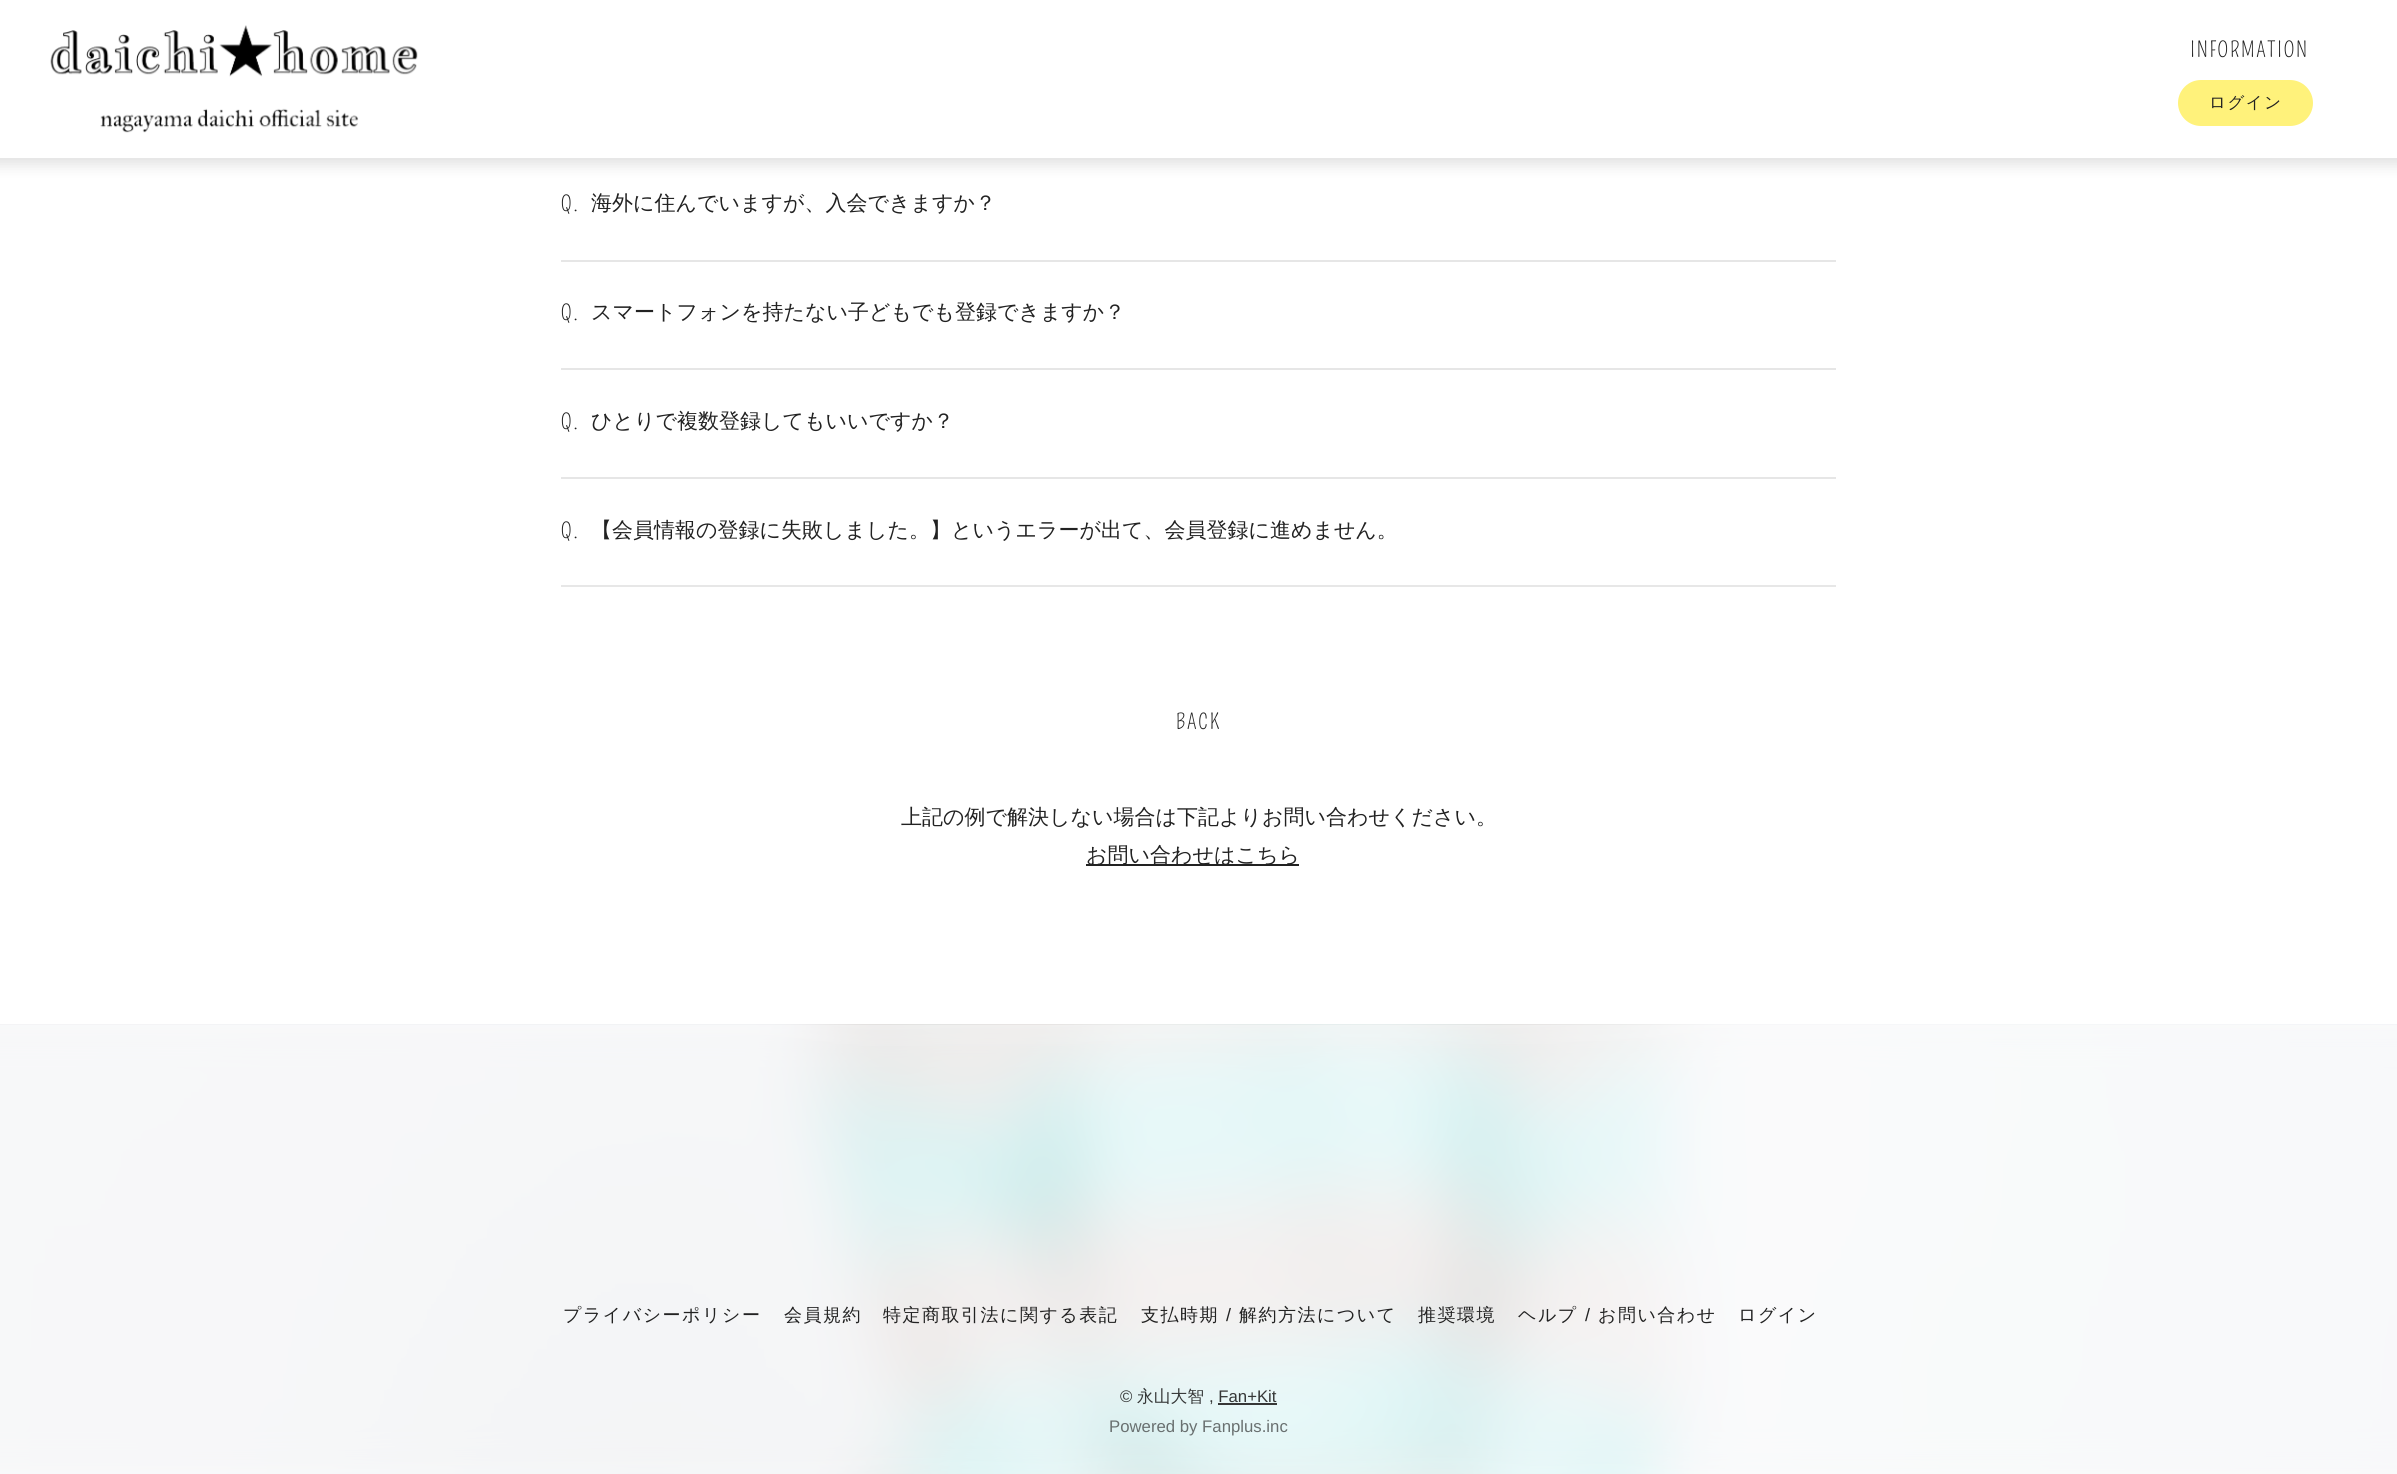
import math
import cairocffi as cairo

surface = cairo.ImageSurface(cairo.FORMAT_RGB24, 2397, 1474)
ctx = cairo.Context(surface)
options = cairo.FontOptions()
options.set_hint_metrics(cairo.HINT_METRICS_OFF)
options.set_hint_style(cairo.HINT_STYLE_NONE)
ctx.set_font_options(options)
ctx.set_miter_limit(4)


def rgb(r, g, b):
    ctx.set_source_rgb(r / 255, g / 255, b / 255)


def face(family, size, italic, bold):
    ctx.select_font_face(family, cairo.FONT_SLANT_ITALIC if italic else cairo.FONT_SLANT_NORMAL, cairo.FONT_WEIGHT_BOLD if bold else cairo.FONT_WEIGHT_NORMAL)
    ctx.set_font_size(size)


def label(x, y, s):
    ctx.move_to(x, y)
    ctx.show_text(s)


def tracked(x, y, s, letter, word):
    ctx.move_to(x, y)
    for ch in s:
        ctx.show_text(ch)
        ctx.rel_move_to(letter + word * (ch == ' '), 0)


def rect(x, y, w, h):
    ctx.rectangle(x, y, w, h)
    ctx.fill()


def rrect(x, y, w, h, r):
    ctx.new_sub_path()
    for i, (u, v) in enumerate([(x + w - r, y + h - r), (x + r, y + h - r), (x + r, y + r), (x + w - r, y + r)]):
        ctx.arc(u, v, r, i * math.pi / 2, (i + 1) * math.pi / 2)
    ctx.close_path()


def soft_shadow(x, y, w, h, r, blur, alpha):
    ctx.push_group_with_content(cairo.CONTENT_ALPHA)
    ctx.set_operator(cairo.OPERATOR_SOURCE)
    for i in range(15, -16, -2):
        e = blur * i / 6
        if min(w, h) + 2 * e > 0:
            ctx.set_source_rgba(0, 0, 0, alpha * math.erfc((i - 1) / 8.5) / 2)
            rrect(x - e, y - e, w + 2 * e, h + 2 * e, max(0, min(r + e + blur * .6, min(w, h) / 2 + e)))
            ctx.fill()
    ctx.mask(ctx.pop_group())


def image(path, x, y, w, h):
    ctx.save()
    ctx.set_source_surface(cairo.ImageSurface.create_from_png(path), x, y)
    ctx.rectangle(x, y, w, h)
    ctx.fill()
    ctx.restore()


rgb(255, 255, 255)
ctx.paint()
rgb(0, 0, 0)
soft_shadow(-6, -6, 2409, 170, 0, 7.5, 0.13)
rgb(255, 255, 255)
rect(0, 0, 2397, 158)
image('image0.png', 50, 25, 368, 108)
face('Pompiere', 21, 0, 0)
rgb(34, 34, 34)
tracked(2190, 57, 'INFORMATION', 1.75, 0)
rgb(255, 242, 123)
rrect(2178, 80, 135, 46, 23)
ctx.fill()
face('WenQuanYi Zen Hei Medium', 16.5, 0, 0)
rgb(34, 34, 34)
tracked(2209, 108, 'ログイン', 1.5, 0)
face('Pompiere', 21, 0, 0)
tracked(561, 211, 'Q.', 1.75, 0)
face('WenQuanYi Zen Hei Medium', 21, 0, 0)
label(591, 210, '海外に住んでいますが、入会できますか？')
rgb(230, 230, 230)
rect(561, 260, 1275, 2)
face('Pompiere', 21, 0, 0)
rgb(34, 34, 34)
tracked(561, 320, 'Q.', 1.75, 0)
face('WenQuanYi Zen Hei Medium', 21, 0, 0)
label(591, 319, 'スマートフォンを持たない子どもでも登録できますか？')
rgb(230, 230, 230)
rect(561, 368, 1275, 2)
face('Pompiere', 21, 0, 0)
rgb(34, 34, 34)
tracked(561, 429, 'Q.', 1.75, 0)
face('WenQuanYi Zen Hei Medium', 21, 0, 0)
label(591, 428, 'ひとりで複数登録してもいいですか？')
rgb(230, 230, 230)
rect(561, 477, 1275, 2)
rgb(231, 231, 231)
rect(561, 585, 1275, 2)
face('Pompiere', 21, 0, 0)
rgb(34, 34, 34)
tracked(561, 538, 'Q.', 1.75, 0)
face('WenQuanYi Zen Hei Medium', 21, 0, 0)
label(591, 537, '【会員情報の登録に失敗しました。】というエラーが出て、会員登録に進めません。')
face('Pompiere', 21, 0, 0)
tracked(1176, 729, 'BACK', 1.75, 0)
face('WenQuanYi Zen Hei Medium', 21, 0, 0)
label(901, 824, '上記の例で解決しない場合は下記よりお問い合わせください。')
rect(1086, 864, 213, 2)
label(1086, 862, 'お問い合わせはこちら')
image('image1.png', 0, 1024, 2397, 450)
face('WenQuanYi Zen Hei Medium', 18, 0, 0)
tracked(563, 1321, 'プライバシーポリシー', 1.5, 0)
tracked(784, 1321, '会員規約', 1.5, 0)
tracked(883, 1321, '特定商取引法に関する表記', 1.5, 0)
tracked(1141, 1321, '支払時期', 1.5, 0)
face('Liberation Sans', 18, 0, 0)
tracked(1226, 1321, '/', 1.5, 0)
face('WenQuanYi Zen Hei Medium', 18, 0, 0)
tracked(1239, 1321, '解約方法について', 1.5, 0)
tracked(1418, 1321, '推奨環境', 1.5, 0)
tracked(1518, 1321, 'ヘルプ', 1.5, 0)
face('Liberation Sans', 18, 0, 0)
tracked(1585, 1321, '/', 1.5, 0)
face('WenQuanYi Zen Hei Medium', 18, 0, 0)
tracked(1598, 1321, 'お問い合わせ', 1.5, 0)
tracked(1738, 1321, 'ログイン', 1.5, 0)
face('Liberation Sans', 16.75, 0, 0)
rgb(53, 55, 55)
label(1120, 1402, '©')
face('WenQuanYi Zen Hei Medium', 16.75, 0, 0)
label(1137, 1402, '永山大智')
face('Liberation Sans', 16.75, 0, 0)
label(1209, 1402, ', Fan+Kit')
rgb(54, 55, 55)
rect(1218, 1403, 59, 2)
rgb(105, 112, 112)
label(1109, 1432, 'Powered by Fanplus.inc')
surface.write_to_png('render.png')
